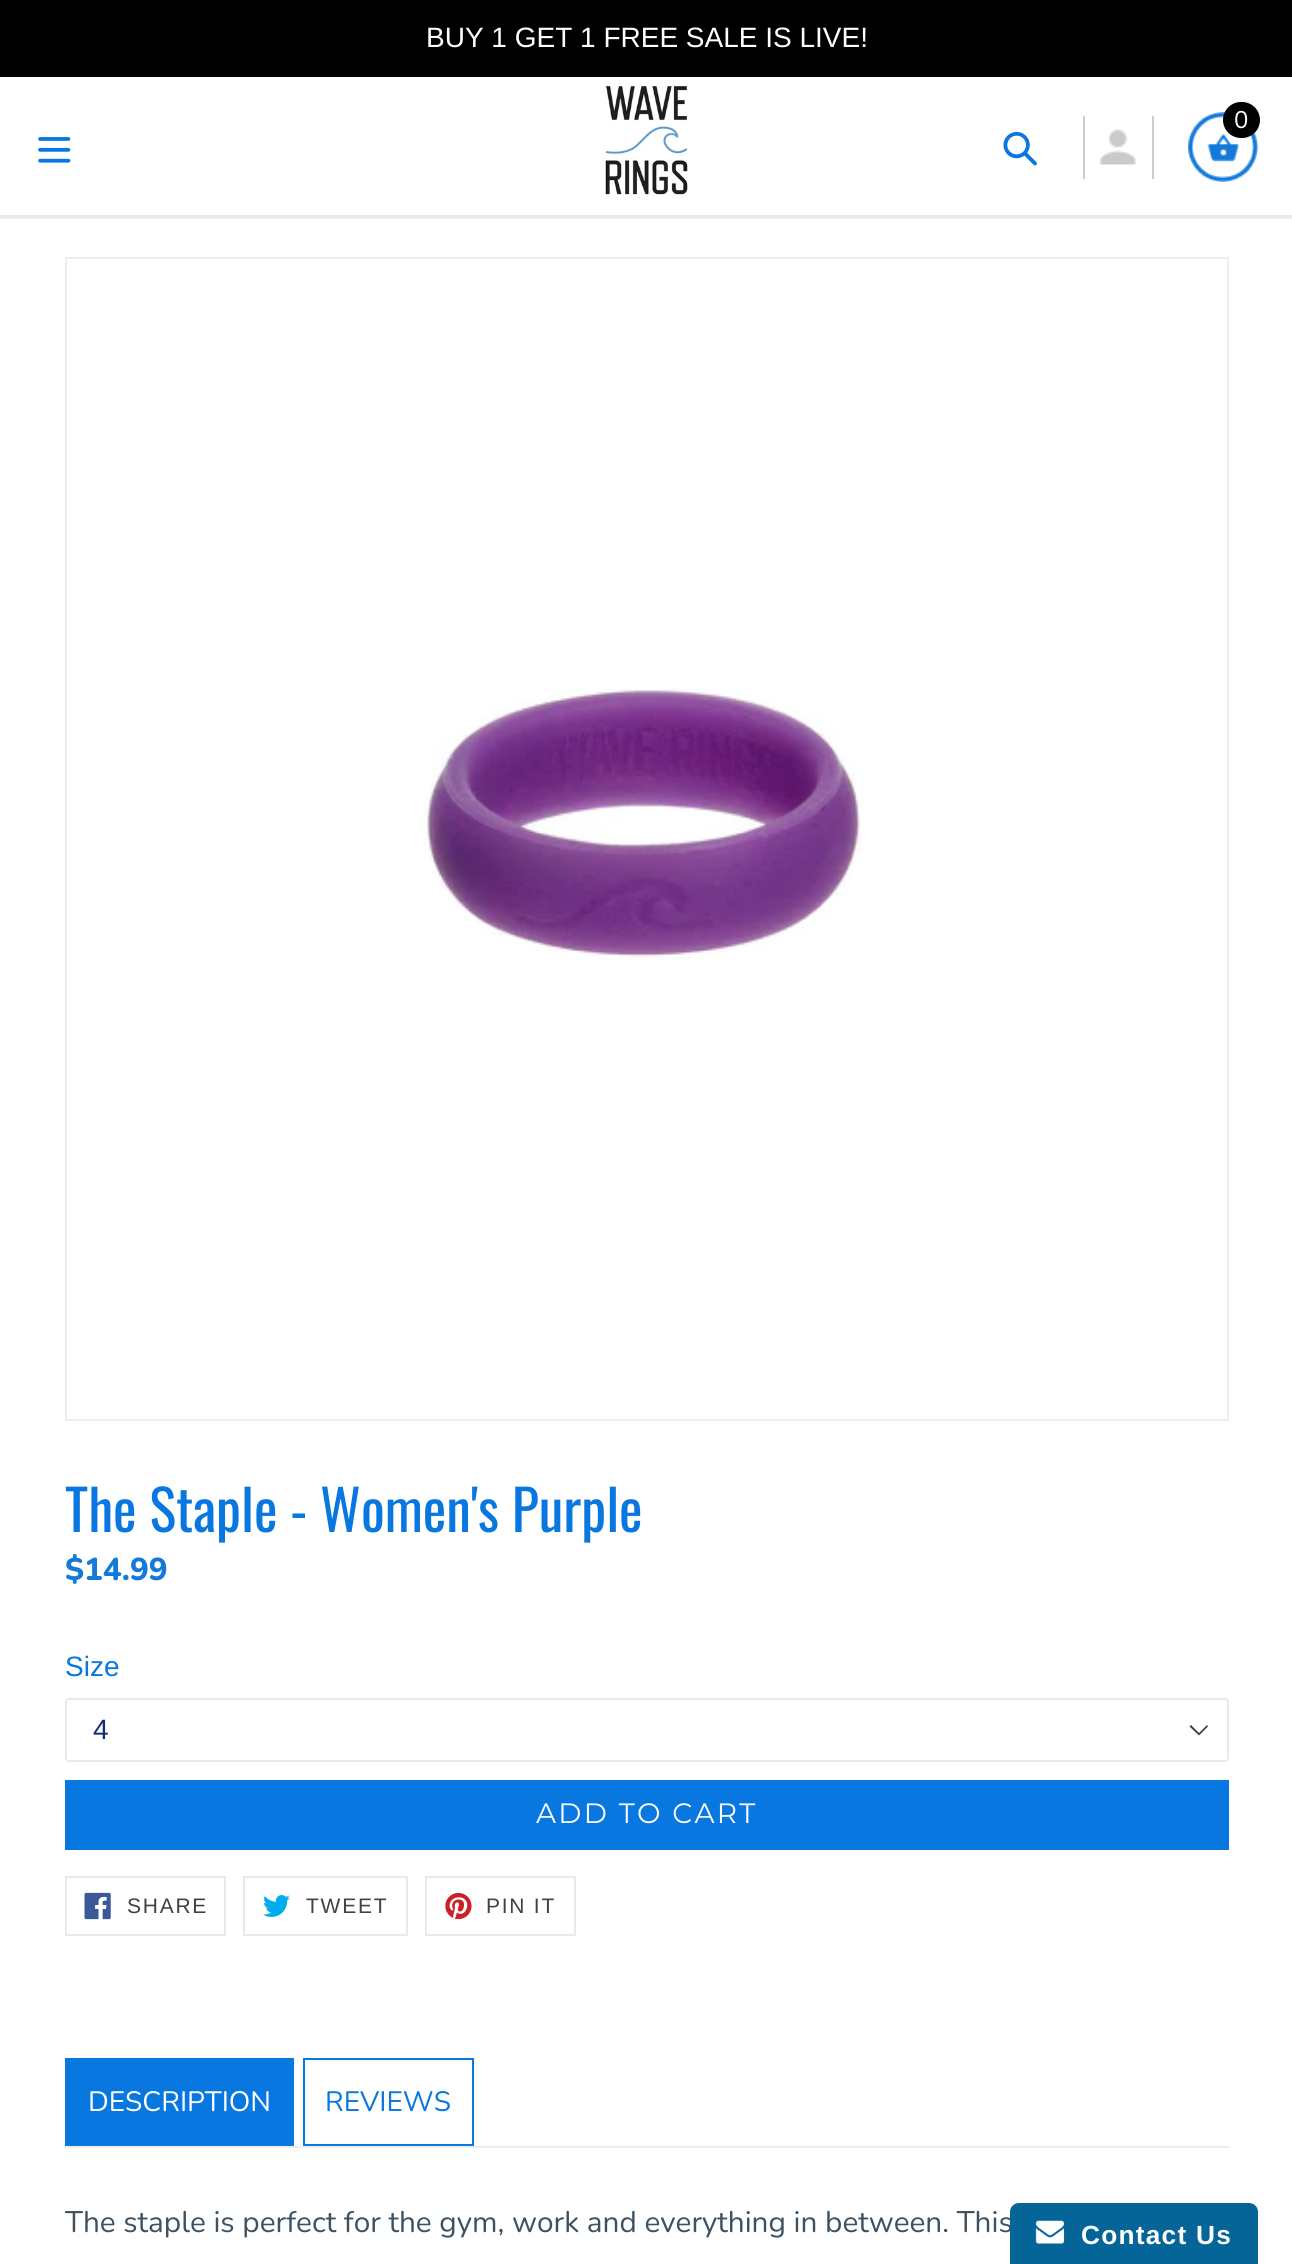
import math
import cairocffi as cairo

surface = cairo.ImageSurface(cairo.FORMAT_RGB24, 1292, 2264)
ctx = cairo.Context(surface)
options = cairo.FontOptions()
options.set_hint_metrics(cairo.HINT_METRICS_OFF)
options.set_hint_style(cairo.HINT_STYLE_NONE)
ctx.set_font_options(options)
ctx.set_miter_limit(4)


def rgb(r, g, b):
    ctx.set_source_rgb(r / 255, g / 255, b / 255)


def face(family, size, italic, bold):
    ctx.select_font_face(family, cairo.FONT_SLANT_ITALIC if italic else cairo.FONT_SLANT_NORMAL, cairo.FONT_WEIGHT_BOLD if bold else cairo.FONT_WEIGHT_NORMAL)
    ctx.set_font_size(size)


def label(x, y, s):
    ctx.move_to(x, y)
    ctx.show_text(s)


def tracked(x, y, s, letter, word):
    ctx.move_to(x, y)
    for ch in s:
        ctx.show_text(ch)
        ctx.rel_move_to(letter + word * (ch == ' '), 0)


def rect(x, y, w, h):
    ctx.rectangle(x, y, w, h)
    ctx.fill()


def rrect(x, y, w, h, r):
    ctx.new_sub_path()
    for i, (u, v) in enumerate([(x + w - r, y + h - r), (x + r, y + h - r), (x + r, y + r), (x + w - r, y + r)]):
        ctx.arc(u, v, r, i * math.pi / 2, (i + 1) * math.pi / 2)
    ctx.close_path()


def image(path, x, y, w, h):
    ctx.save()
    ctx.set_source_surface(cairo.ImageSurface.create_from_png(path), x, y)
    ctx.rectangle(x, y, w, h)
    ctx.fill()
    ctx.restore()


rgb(255, 255, 255)
ctx.paint()
rgb(238, 238, 238)
rect(0, 217, 1292, 2)
rgb(0, 0, 0)
rect(0, 0, 1292, 77)
face('Liberation Sans', 28, 0, 0)
rgb(255, 255, 255)
label(426, 47, 'BUY 1 GET 1 FREE SALE IS LIVE!')
rgb(232, 233, 235)
rect(0, 215, 1292, 2)
image('image0.png', 605, 85, 83, 110)
image('image1.png', 1003, 131, 34, 35)
image('image2.png', 1099, 129, 37, 36)
rgb(204, 204, 204)
rect(1152, 116, 2, 63)
rect(1083, 116, 2, 63)
image('image3.png', 1188, 112, 71, 70)
rgb(0, 0, 0)
rrect(1223, 102, 37, 36, 18)
ctx.fill()
face('Nunito', 24, 0, 0)
rgb(255, 255, 255)
label(1234, 128, '0')
image('image4.png', 38, 137, 33, 26)
ctx.rectangle(66, 258, 1162, 1162)
rgb(238, 238, 238)
ctx.stroke()
image('image5.png', 424, 687, 442, 274)
face('Oswald', 56, 0, 0)
rgb(8, 119, 223)
label(65, 1532, 'The Staple - Women\'s Purple')
face('Nunito ExtraBold', 31.5, 0, 0)
rgb(20, 122, 218)
label(65, 1580, '$14.99')
face('Liberation Sans', 28, 0, 0)
rgb(8, 119, 223)
label(65, 1676, 'Size')
rgb(61, 66, 70)
ctx.new_path()
ctx.move_to(1199, 1735.5)
ctx.line_to(1189.5, 1726.5)
ctx.line_to(1191, 1725)
ctx.line_to(1199, 1733)
ctx.line_to(1207, 1725)
ctx.line_to(1208, 1726.5)
ctx.close_path()
ctx.fill()
rrect(66, 1699, 1162, 62, 3)
rgb(232, 233, 235)
ctx.stroke()
rgb(21, 43, 117)
label(93, 1739, '4')
rgb(8, 119, 223)
rect(65, 1780, 1164, 70)
face('Montserrat Thin', 28, 0, 0)
rgb(255, 255, 255)
tracked(536, 1823, 'ADD TO CART', 2.25, 0)
ctx.rectangle(66, 1877, 159, 58)
rgb(232, 233, 235)
ctx.stroke()
image('image6.png', 84, 1892, 27, 28)
face('Liberation Sans', 21, 0, 0)
rgb(61, 66, 70)
tracked(127, 1913, 'SHARE', 1.75, 0)
ctx.rectangle(244, 1877, 163, 58)
rgb(232, 233, 235)
ctx.stroke()
image('image7.png', 263, 1895, 27, 22)
rgb(61, 66, 70)
tracked(306, 1913, 'TWEET', 1.75, 0)
ctx.rectangle(426, 1877, 149, 58)
rgb(232, 233, 235)
ctx.stroke()
image('image8.png', 445, 1892, 27, 28)
rgb(61, 66, 70)
tracked(486, 1913, 'PIN IT', 1.75, 0)
rgb(238, 238, 238)
rect(65, 2146, 1164, 2)
rgb(8, 119, 223)
rect(65, 2058, 229, 88)
face('Nunito', 28, 0, 0)
rgb(255, 255, 255)
label(88, 2111, 'DESCRIPTION')
ctx.rectangle(304, 2059, 169, 86)
rgb(8, 119, 223)
ctx.stroke()
label(325, 2111, 'REVIEWS')
face('Nunito', 29.75, 0, 0)
rgb(60, 81, 98)
label(65, 2232, 'The staple is perfect for the gym, work and everything in between. This')
rgb(5, 101, 152)
ctx.new_path()
ctx.move_to(1019, 2203)
ctx.line_to(1249, 2203)
ctx.curve_to(1254, 2203, 1258, 2207, 1258, 2212)
ctx.line_to(1258, 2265)
ctx.line_to(1010, 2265)
ctx.line_to(1010, 2212)
ctx.curve_to(1010, 2207, 1014, 2203, 1019, 2203)
ctx.close_path()
ctx.fill()
image('image9.png', 1035, 2220, 30, 24)
face('Liberation Sans', 26.25, 0, 1)
rgb(255, 255, 255)
tracked(1081, 2244, 'Contact Us', 1.25, 0)
surface.write_to_png('render.png')
